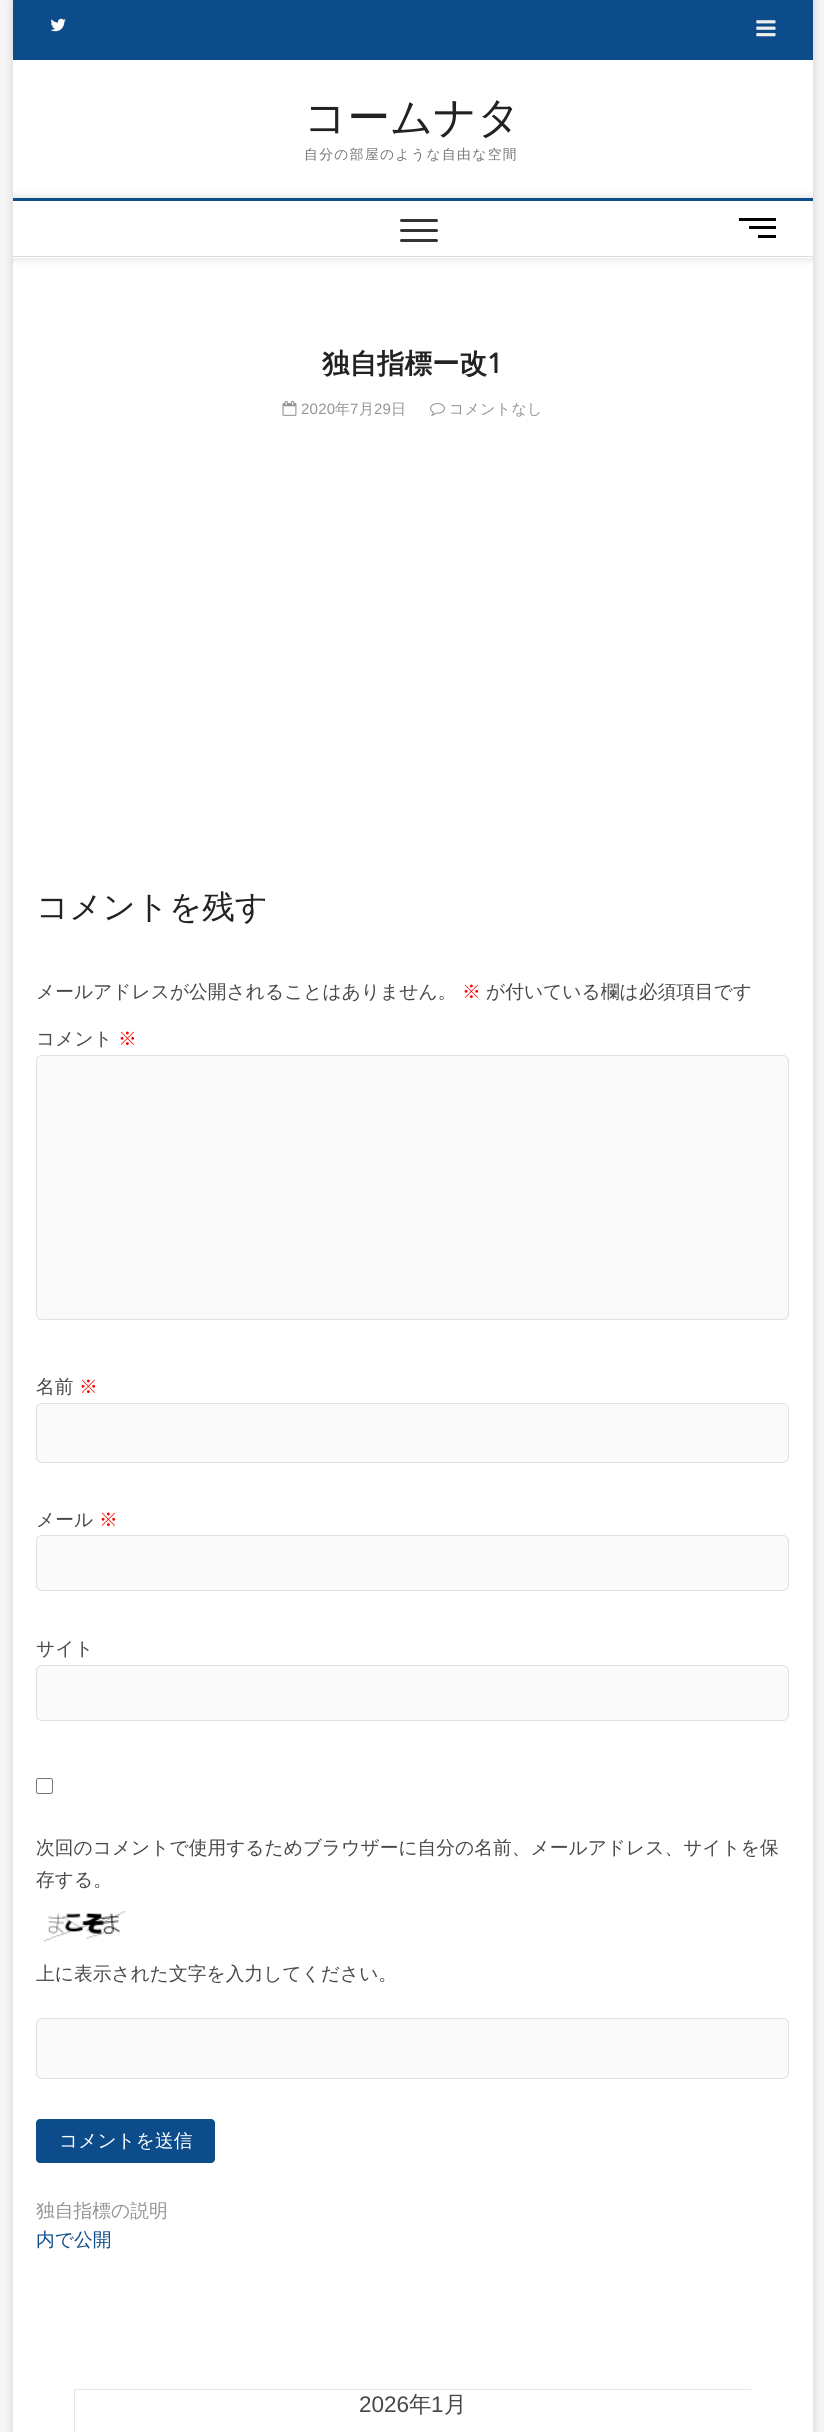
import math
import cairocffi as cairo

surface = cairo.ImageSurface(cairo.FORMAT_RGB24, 824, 2432)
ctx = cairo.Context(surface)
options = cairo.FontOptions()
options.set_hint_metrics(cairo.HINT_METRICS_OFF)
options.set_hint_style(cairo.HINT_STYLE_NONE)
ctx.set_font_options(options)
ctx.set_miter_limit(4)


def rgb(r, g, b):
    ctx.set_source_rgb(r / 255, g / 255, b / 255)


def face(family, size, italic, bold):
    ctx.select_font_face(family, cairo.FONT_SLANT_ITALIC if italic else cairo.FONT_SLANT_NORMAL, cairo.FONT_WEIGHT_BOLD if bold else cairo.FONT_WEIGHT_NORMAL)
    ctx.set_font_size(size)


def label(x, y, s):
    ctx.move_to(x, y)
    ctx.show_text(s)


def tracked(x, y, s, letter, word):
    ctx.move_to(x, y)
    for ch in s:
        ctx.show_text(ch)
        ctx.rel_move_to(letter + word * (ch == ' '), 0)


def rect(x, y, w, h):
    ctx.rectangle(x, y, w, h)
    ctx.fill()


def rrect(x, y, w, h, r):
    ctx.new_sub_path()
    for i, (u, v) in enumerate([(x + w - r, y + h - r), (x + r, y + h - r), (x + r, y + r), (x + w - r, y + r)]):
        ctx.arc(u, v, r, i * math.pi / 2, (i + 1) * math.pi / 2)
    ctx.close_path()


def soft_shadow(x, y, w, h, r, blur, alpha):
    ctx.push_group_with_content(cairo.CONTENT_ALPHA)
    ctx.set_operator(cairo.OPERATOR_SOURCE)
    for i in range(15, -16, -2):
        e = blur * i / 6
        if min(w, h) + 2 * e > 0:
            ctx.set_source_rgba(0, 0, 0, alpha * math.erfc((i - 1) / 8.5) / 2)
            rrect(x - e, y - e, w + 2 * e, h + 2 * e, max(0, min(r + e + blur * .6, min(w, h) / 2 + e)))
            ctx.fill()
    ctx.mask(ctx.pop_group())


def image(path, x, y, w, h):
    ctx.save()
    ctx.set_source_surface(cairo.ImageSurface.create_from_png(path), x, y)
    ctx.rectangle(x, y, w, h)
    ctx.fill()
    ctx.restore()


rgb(244, 244, 244)
ctx.paint()
rgb(0, 0, 0)
soft_shadow(13, 1, 800, 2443, 0, 4, 0.15)
rgb(255, 255, 255)
rect(13, 60, 800, 2372)
rgb(12, 76, 138)
rect(13, 0, 800, 60)
image('image0.png', 50, 18, 16, 14)
image('image1.png', 756, 20, 20, 17)
face('WenQuanYi Zen Hei Medium', 42.5, 0, 0)
rgb(34, 34, 34)
label(304, 132, 'コームナタ')
face('WenQuanYi Zen Hei Medium', 13.75, 0, 0)
rgb(116, 116, 116)
tracked(304, 159, '自分の部屋のような自由な空間', 1.4, 0)
ctx.save()
ctx.rectangle(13, 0, 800, 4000)
ctx.clip()
rgb(0, 0, 0)
soft_shadow(13, 198, 800, 60, 0, 5, 0.15)
ctx.restore()
rgb(255, 255, 255)
rect(13, 201, 800, 57)
rgb(12, 76, 138)
rect(13, 198, 800, 3)
rgb(221, 221, 221)
rect(13, 256, 800, 1)
rgb(51, 51, 51)
rrect(400, 229, 38, 3, 1.5)
ctx.fill()
rrect(400, 219, 38, 3, 1.5)
ctx.fill()
rrect(400, 239, 38, 3, 1.5)
ctx.fill()
rgb(0, 0, 0)
rect(749, 226, 27, 3)
rect(739, 218, 37, 3)
rect(758, 235, 18, 3)
face('WenQuanYi Zen Hei', 27.5, 0, 1)
rgb(34, 34, 34)
label(322, 373, '独自指標ー改')
face('Open Sans', 27.5, 0, 1)
label(487, 373, '1')
image('image2.png', 282, 400, 15, 16)
face('Liberation Sans', 15, 0, 0)
rgb(148, 148, 148)
tracked(301, 414, '2020', 0.25, 0)
face('WenQuanYi Zen Hei Medium', 15, 0, 0)
tracked(335, 414, '年', 0.25, 0)
face('Liberation Sans', 15, 0, 0)
tracked(350, 414, '7', 0.25, 0)
face('WenQuanYi Zen Hei Medium', 15, 0, 0)
tracked(359, 414, '月', 0.25, 0)
face('Liberation Sans', 15, 0, 0)
tracked(374, 414, '29', 0.25, 0)
face('WenQuanYi Zen Hei Medium', 15, 0, 0)
tracked(391, 414, '日', 0.25, 0)
image('image3.png', 430, 403, 15, 13)
tracked(449, 414, 'コメントなし', 0.25, 0)
face('WenQuanYi Zen Hei Medium', 32.5, 0, 0)
rgb(34, 34, 34)
label(36, 918, 'コメントを残す')
face('WenQuanYi Zen Hei Medium', 18.75, 0, 0)
rgb(72, 72, 72)
label(36, 998, 'メールアドレスが公開されることはありません。')
rgb(255, 0, 0)
label(462, 998, '※')
rgb(72, 72, 72)
label(486, 998, 'が付いている欄は必須項目です')
label(36, 1045, 'コメント')
rgb(255, 0, 0)
label(118, 1045, '※')
rgb(250, 250, 250)
rrect(36.5, 1055.5, 752, 264, 5.5)
ctx.fill_preserve()
rgb(225, 225, 225)
ctx.set_line_width(1)
ctx.stroke()
rgb(72, 72, 72)
label(36, 1393, '名前')
rgb(255, 0, 0)
label(79, 1393, '※')
rgb(250, 250, 250)
rrect(36.5, 1403.5, 752, 59, 5.5)
ctx.fill_preserve()
rgb(225, 225, 225)
ctx.stroke()
rgb(72, 72, 72)
label(36, 1526, 'メール')
rgb(255, 0, 0)
label(99, 1526, '※')
rgb(250, 250, 250)
rrect(36.5, 1535.5, 752, 55, 5.5)
ctx.fill_preserve()
rgb(225, 225, 225)
ctx.stroke()
rgb(72, 72, 72)
label(36, 1655, 'サイト')
rgb(250, 250, 250)
rrect(36.5, 1665.5, 752, 55, 5.5)
ctx.fill_preserve()
rgb(225, 225, 225)
ctx.stroke()
rrect(36.5, 1778.5, 16, 15, 2)
rgb(118, 118, 118)
ctx.stroke()
rgb(72, 72, 72)
label(36, 1854, '次回のコメントで使用するためブラウザーに自分の名前、メールアドレス、サイトを保')
label(36, 1886, '存する。')
image('image4.png', 43, 1911, 83, 31)
label(36, 1980, '上に表示された文字を入力してください。')
rgb(250, 250, 250)
rrect(36.5, 2018.5, 752, 60, 5.5)
ctx.fill_preserve()
rgb(225, 225, 225)
ctx.stroke()
rgb(12, 76, 138)
rrect(36, 2119, 179, 44, 4)
ctx.fill()
rgb(255, 255, 255)
label(59, 2147, 'コメントを送信')
rgb(148, 148, 148)
label(36, 2217, '独自指標の説明')
rgb(12, 76, 138)
label(36, 2246, '内で公開')
rgb(230, 230, 230)
ctx.new_path()
ctx.move_to(74, 2389)
ctx.line_to(751, 2389)
ctx.line_to(751, 2390)
ctx.line_to(75, 2390)
ctx.close_path()
ctx.fill()
ctx.set_source_rgba(0, 0, 0, 0.1)
ctx.new_path()
ctx.move_to(74, 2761)
ctx.line_to(74, 2389)
ctx.line_to(75, 2390)
ctx.line_to(75, 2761)
ctx.close_path()
ctx.fill()
face('Liberation Sans', 22.5, 0, 0)
rgb(72, 72, 72)
label(359, 2412, '2026')
face('WenQuanYi Zen Hei Medium', 22.5, 0, 0)
label(409, 2412, '年')
face('Liberation Sans', 22.5, 0, 0)
label(431, 2412, '1')
face('WenQuanYi Zen Hei Medium', 22.5, 0, 0)
label(444, 2412, '月')
surface.write_to_png('render.png')
